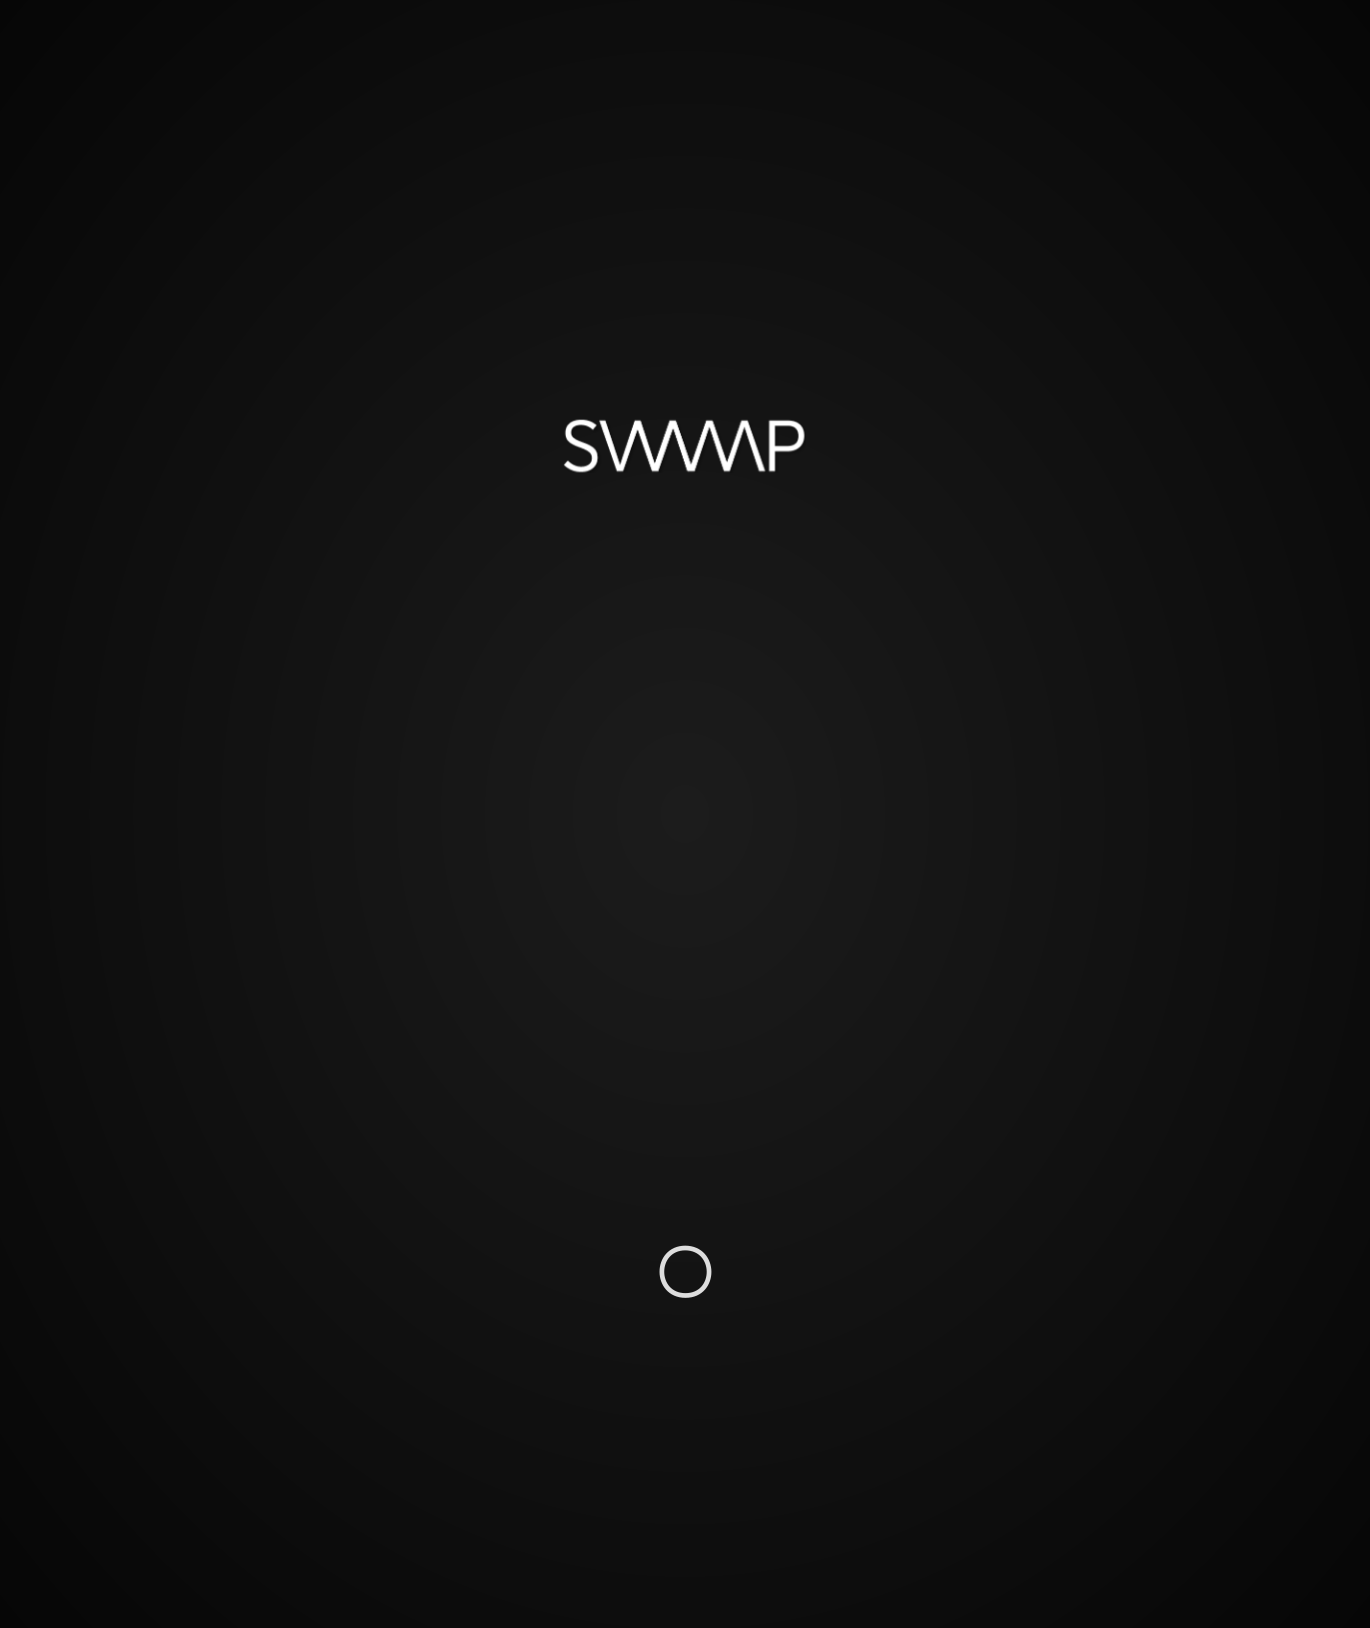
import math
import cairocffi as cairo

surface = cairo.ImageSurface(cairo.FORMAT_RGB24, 1370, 1628)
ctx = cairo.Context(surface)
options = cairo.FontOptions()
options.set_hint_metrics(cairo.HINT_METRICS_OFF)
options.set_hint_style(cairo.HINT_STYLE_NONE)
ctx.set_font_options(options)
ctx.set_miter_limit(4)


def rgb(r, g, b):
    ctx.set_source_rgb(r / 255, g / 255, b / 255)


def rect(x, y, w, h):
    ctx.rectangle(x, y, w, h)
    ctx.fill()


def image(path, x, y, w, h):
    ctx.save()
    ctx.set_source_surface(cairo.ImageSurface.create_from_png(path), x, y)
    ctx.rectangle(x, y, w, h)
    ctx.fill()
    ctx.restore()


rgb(255, 255, 255)
ctx.paint()
gradient = cairo.RadialGradient(0, 0, 0, 0, 0, 1)
gradient.set_matrix(cairo.Matrix(1 / 969, 0, 0, 1 / 1152, -1 * 685 / 969, -1 * 814 / 1152))
gradient.add_color_stop_rgba(0, 0.11, 0.11, 0.11, 1)
gradient.add_color_stop_rgba(1, 0.024, 0.024, 0.024, 1)
ctx.set_source(gradient)
rect(0, 0, 1370, 1628)
image('image0.png', 563, 419, 243, 54)
ctx.new_path()
ctx.move_to(685, 1248)
ctx.curve_to(717, 1248, 717, 1295.5, 685.5, 1295.5)
ctx.curve_to(654, 1295.5, 654, 1248, 685.5, 1248)
ctx.close_path()
rgb(221, 221, 221)
ctx.set_line_width(4.7)
ctx.stroke()
surface.write_to_png('render.png')
